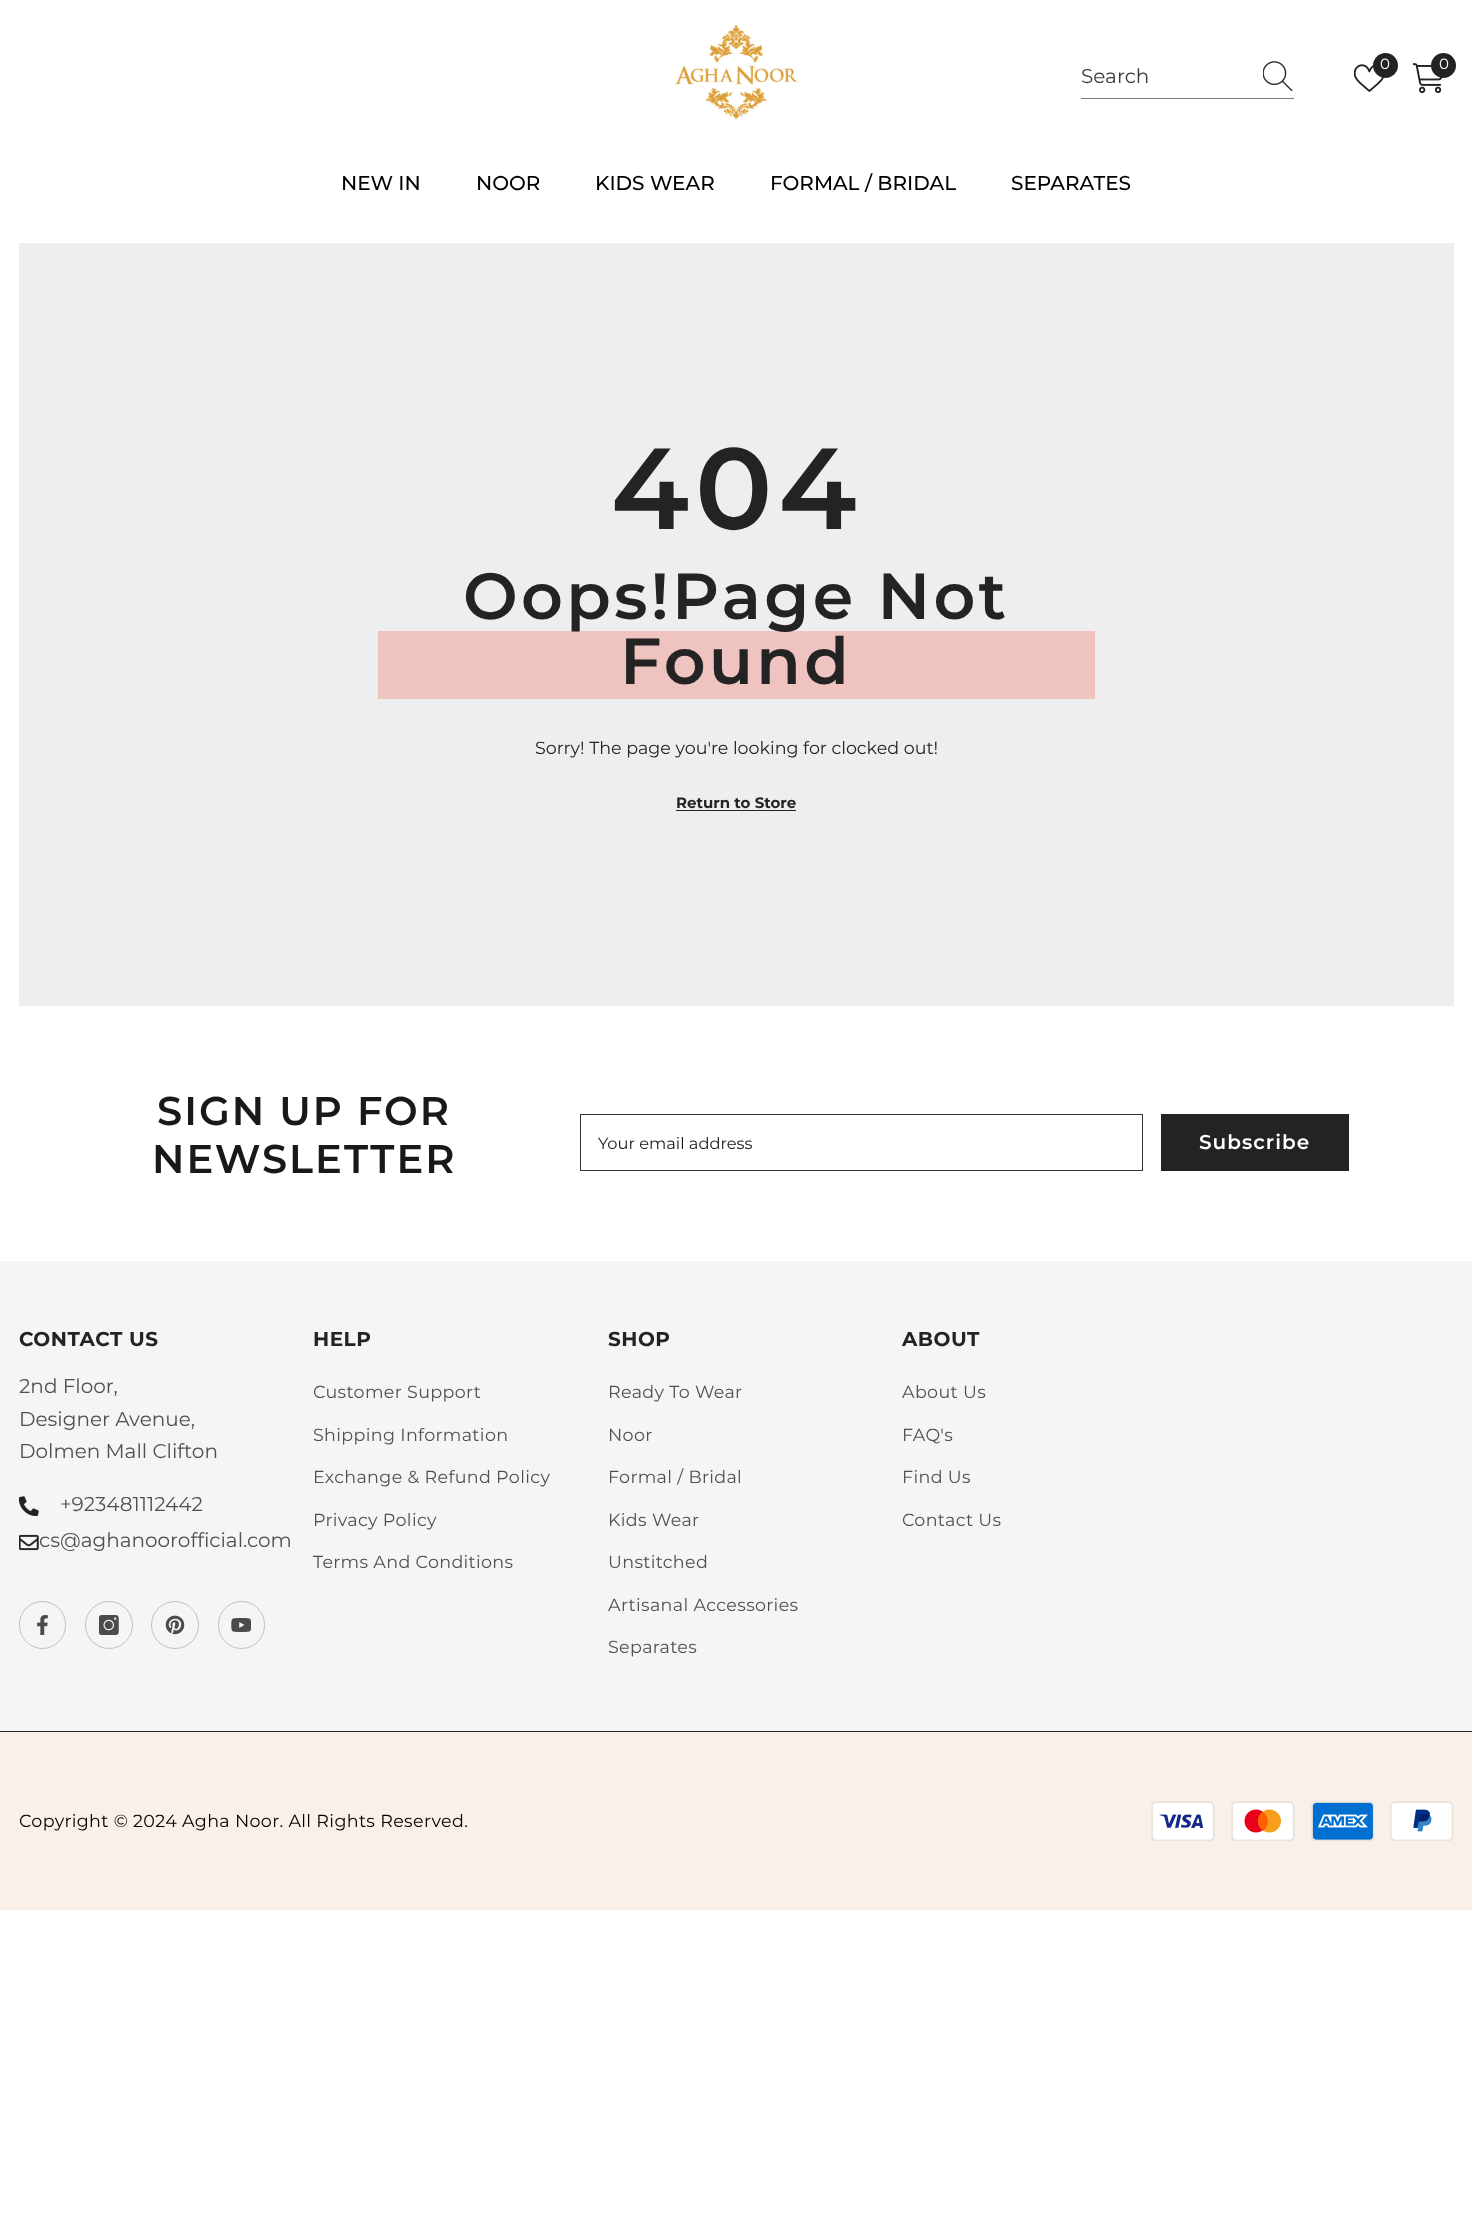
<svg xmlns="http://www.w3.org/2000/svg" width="1472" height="2234">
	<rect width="100%" height="100%" fill="#FFFFFF" />
	<image x="674" y="25" width="124" height="95" href="assets/img1.png" />
	<image x="1354" y="64" width="31" height="28" href="assets/img2.png" />
	<circle cx="1385.5" cy="65.5" r="12.5" fill="#232323" />
	<text x="1380" y="69" font-family="Montserrat" font-size="15" fill="#FFFFFF">0</text>
	<image x="1413" y="63" width="30" height="30" href="assets/img3.png" />
	<circle cx="1443.5" cy="65.5" r="12.5" fill="#232323" />
	<text x="1439" y="69" font-family="Montserrat" font-size="15" fill="#FFFFFF">0</text>
	<rect x="1081" y="98" width="213" height="1" fill="#7B7B7B" />
	<text x="1081" y="83" font-family="Montserrat" font-size="20" fill="#3C3C3C">Search</text>
	<image x="1263" y="61" width="30" height="30" href="assets/img4.png" />
	<g font-family="Montserrat" font-size="20" font-weight="500" fill="#000000">
		<text x="341" y="190">NEW IN</text>
		<text x="476" y="190">NOOR</text>
		<text x="595" y="190">KIDS WEAR</text>
		<text x="770" y="190">FORMAL / BRIDAL</text>
		<text x="1011" y="190">SEPARATES</text>
	</g>
	<rect x="19" y="243" width="1435" height="763" fill="#EEEEEE" />
	<text x="611" y="529" font-family="Montserrat" font-size="115" font-weight="600" letter-spacing="6" fill="#232323">404</text>
	<rect x="378" y="631" width="717" height="68" fill="#EFC3C0" />
	<g font-family="Montserrat" font-size="65" font-weight="600" letter-spacing="3.25" fill="#232323">
		<text x="463" y="619">Oops!Page Not</text>
		<text x="620" y="684">Found</text>
	</g>
	<text x="535" y="754" font-family="Montserrat" font-size="17.5" fill="#232323">Sorry! The page you're looking for clocked out!</text>
	<text x="676" y="808" font-family="Montserrat" font-size="15" font-weight="700" fill="#232323">Return to Store</text>
	<rect x="676" y="810" width="120" height="1" fill="#232323" />
	<g font-family="Montserrat" font-size="40" font-weight="600" letter-spacing="2" fill="#191919">
		<text x="157" y="1125">SIGN UP FOR</text>
		<text x="152" y="1173">NEWSLETTER</text>
	</g>
	<rect x="580.5" y="1114.5" width="562" height="56" fill="none" stroke="#333333" />
	<text x="598" y="1149" font-family="Montserrat" font-size="16.25" fill="#191919">Your email address</text>
	<rect x="1161" y="1114" width="188" height="57" fill="#232323" />
	<text x="1199" y="1149" font-family="Montserrat" font-size="20" font-weight="600" letter-spacing="1" fill="#FFFFFF">Subscribe</text>
	<rect x="0" y="1261" width="1472" height="470" fill="#F5F5F5" />
	<text x="19" y="1346" font-family="Montserrat" font-size="20" font-weight="700" letter-spacing="0.5" fill="#232323">CONTACT US</text>
	<g font-family="Montserrat" font-size="20" fill="#505050">
		<text x="19" y="1393">2nd Floor,</text>
		<text x="19" y="1426">Designer Avenue,</text>
		<text x="19" y="1458">Dolmen Mall Clifton</text>
	</g>
	<image x="19" y="1496" width="20" height="20" href="assets/img5.png" />
	<text x="60" y="1511" font-family="Montserrat" font-size="20" fill="#505050">+923481112442</text>
	<image x="19" y="1534" width="20" height="17" href="assets/img6.png" />
	<text x="39" y="1547" font-family="Montserrat" font-size="20" fill="#505050">cs@aghanoorofficial.com</text>
	<rect x="19.5" y="1601.5" width="46" height="47" rx="23" fill="none" stroke="#C2C2C2" />
	<image x="37" y="1615" width="11" height="20" href="assets/img7.png" />
	<circle cx="109" cy="1625" r="23.5" fill="none" stroke="#C2C2C2" />
	<image x="99" y="1615" width="20" height="20" href="assets/img8.png" />
	<circle cx="175" cy="1625" r="23.5" fill="none" stroke="#C2C2C2" />
	<image x="165" y="1615" width="20" height="20" href="assets/img9.png" />
	<rect x="218.5" y="1601.5" width="46" height="47" rx="23" fill="none" stroke="#C2C2C2" />
	<image x="231" y="1618" width="20" height="14" href="assets/img10.png" />
	<text x="313" y="1346" font-family="Montserrat" font-size="20" font-weight="700" letter-spacing="0.5" fill="#232323">HELP</text>
	<g font-family="Montserrat" font-size="17.5" letter-spacing="0.35" fill="#505050">
		<text x="313" y="1398">Customer Support</text>
		<text x="313" y="1441">Shipping Information</text>
		<text x="313" y="1483">Exchange &amp; Refund Policy</text>
		<text x="313" y="1526">Privacy Policy</text>
		<text x="313" y="1568">Terms And Conditions</text>
	</g>
	<text x="608" y="1346" font-family="Montserrat" font-size="20" font-weight="700" letter-spacing="0.5" fill="#232323">SHOP</text>
	<g font-family="Montserrat" font-size="17.5" letter-spacing="0.35" fill="#505050">
		<text x="608" y="1398">Ready To Wear</text>
		<text x="608" y="1441">Noor</text>
		<text x="608" y="1483">Formal / Bridal</text>
		<text x="608" y="1526">Kids Wear</text>
		<text x="608" y="1568">Unstitched</text>
		<text x="608" y="1611">Artisanal Accessories</text>
		<text x="608" y="1653">Separates</text>
	</g>
	<text x="902" y="1346" font-family="Montserrat" font-size="20" font-weight="700" letter-spacing="0.5" fill="#232323">ABOUT</text>
	<g font-family="Montserrat" font-size="17.5" letter-spacing="0.35" fill="#505050">
		<text x="902" y="1398">About Us</text>
		<text x="902" y="1441">FAQ's</text>
		<text x="902" y="1483">Find Us</text>
		<text x="902" y="1526">Contact Us</text>
	</g>
	<rect x="0" y="1732" width="1472" height="178" fill="#F9F1E9" />
	<rect x="0" y="1731" width="1472" height="1" fill="#282828" />
	<text x="19" y="1827" font-family="Montserrat" font-size="17.5" letter-spacing="0.35" fill="#000000">Copyright © 2024 Agha Noor. All Rights Reserved.</text>
	<image x="1151" y="1801" width="64" height="40" href="assets/img11.png" />
	<image x="1231" y="1801" width="64" height="40" href="assets/img12.png" />
	<image x="1311" y="1801" width="63" height="40" href="assets/img13.png" />
	<image x="1390" y="1801" width="64" height="40" href="assets/img14.png" />
</svg>
